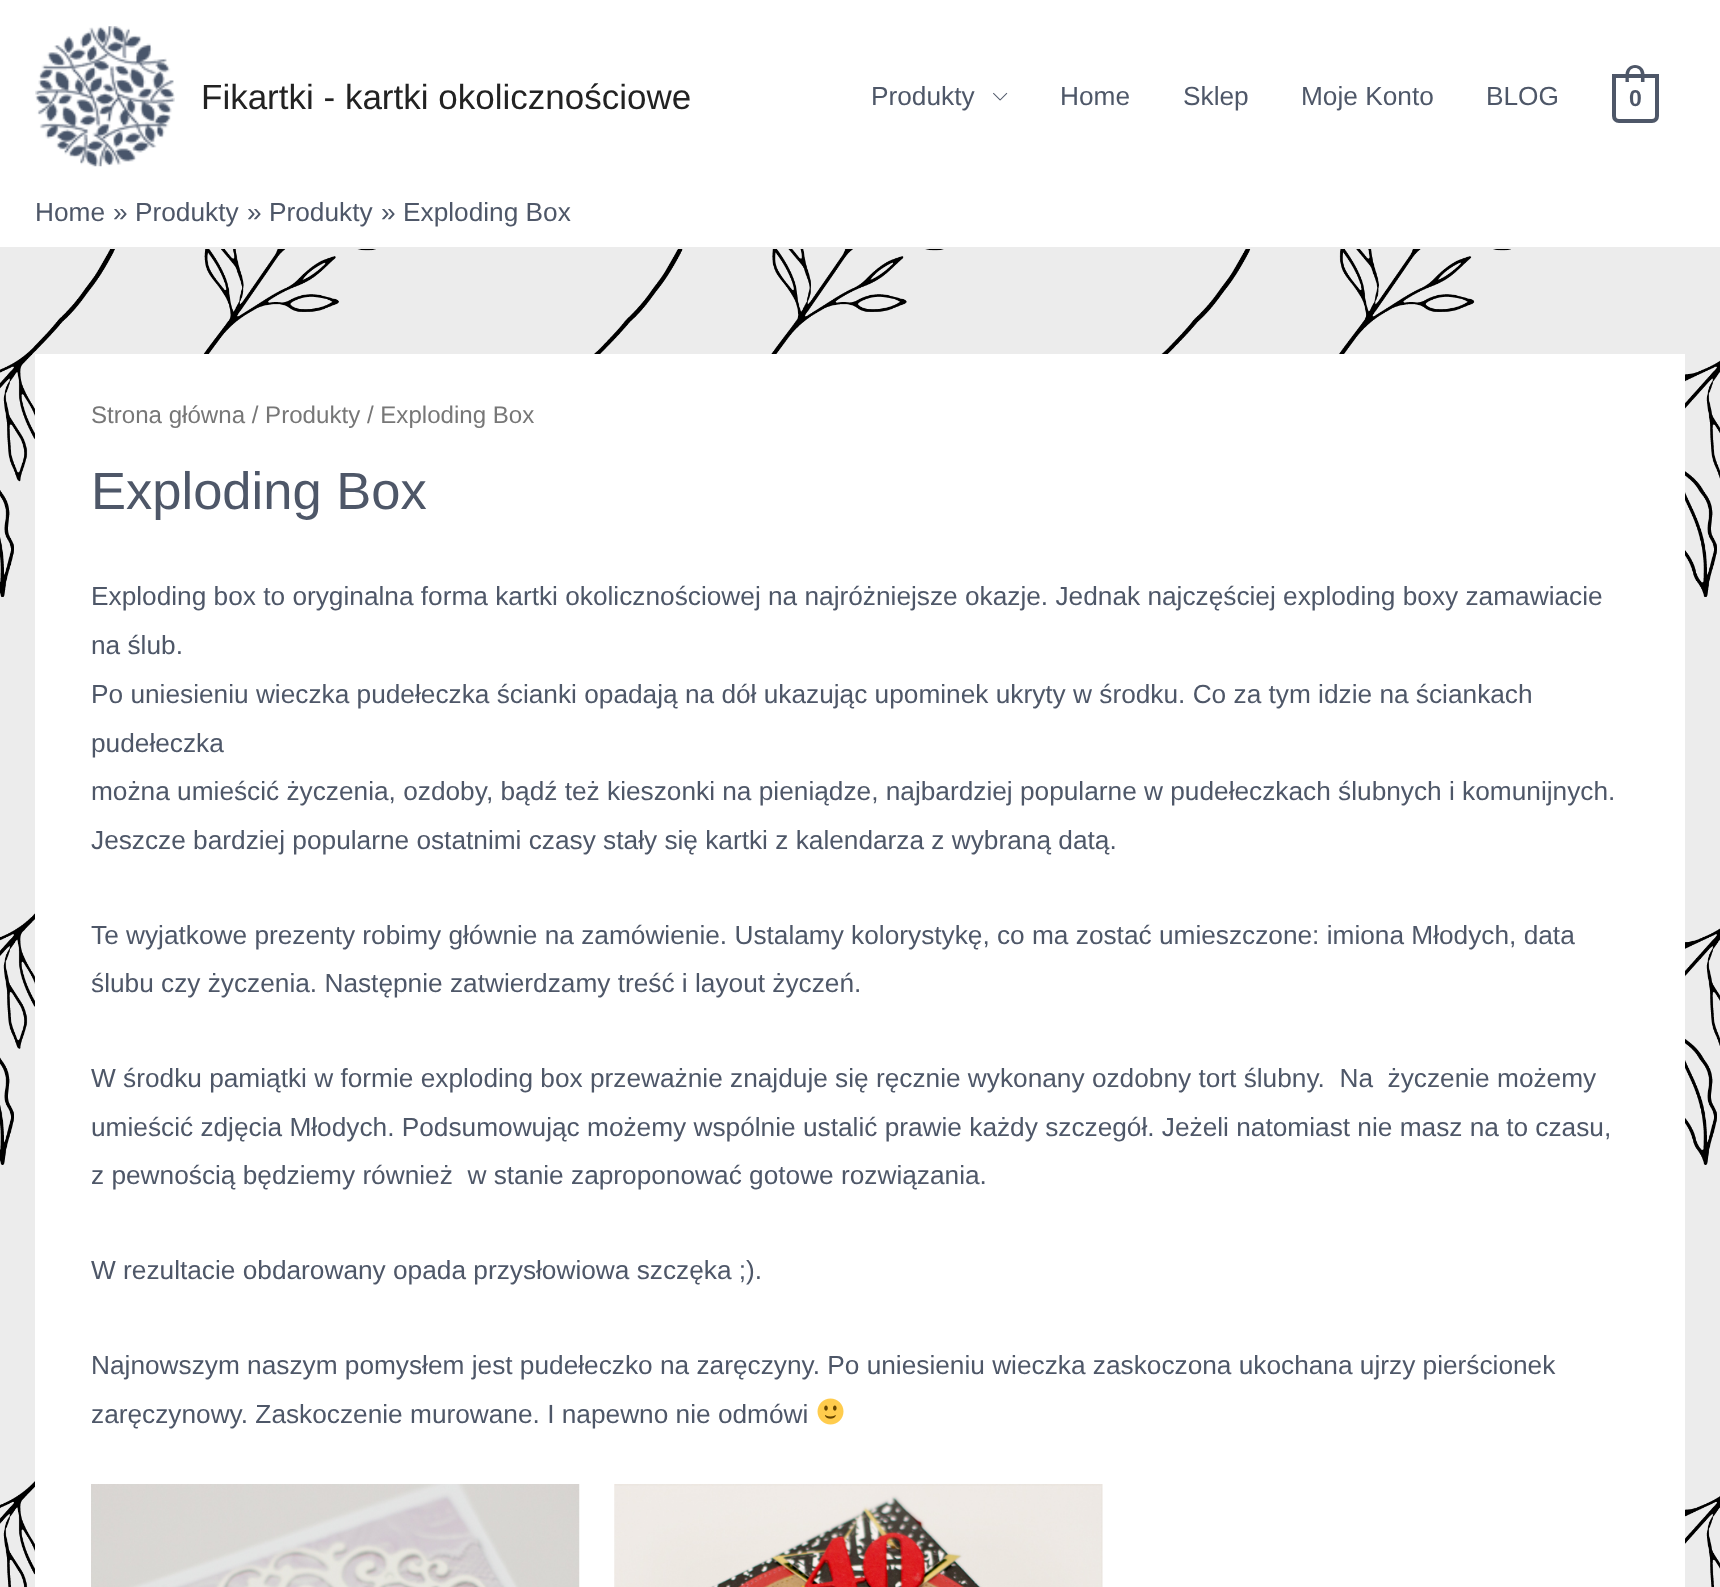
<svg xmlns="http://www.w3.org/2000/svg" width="1720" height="1587">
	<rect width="100%" height="100%" fill="#ECECEC" />
	<image x="0" y="249" width="1720" height="1338" href="assets/img1.png" />
	<rect x="0" y="0" width="1720" height="247" fill="#FFFFFF" />
	<image x="35" y="26" width="140" height="141" href="assets/img2.png" />
	<text x="201" y="109" font-family="Liberation Sans" font-size="35" fill="#222222">Fikartki - kartki okolicznościowe</text>
	<text x="871" y="105" font-family="Liberation Sans" font-size="26.25" fill="#4E5768">Produkty</text>
	<image x="993" y="92" width="15" height="9" href="assets/img3.png" />
	<g font-family="Liberation Sans" font-size="26.25" fill="#4E5768">
		<text x="1060" y="105">Home</text>
		<text x="1183" y="105">Sklep</text>
		<text x="1301" y="105">Moje Konto</text>
		<text x="1486" y="105">BLOG</text>
	</g>
	<path d="M1614 76H1657V116C1657 119 1655 121 1652 121H1619C1616 121 1614 119 1614 116Z" fill="none" stroke="#4E5768" stroke-width="4" />
	<path d="M1635 65C1640.5 65 1644.5 69 1644.5 74.5V82H1625.5V74.5C1625.5 69 1630 65 1635 65ZM1635 68C1642.5 68 1641 77.5 1641 82H1629C1629 77.5 1627.5 68 1635 68Z" fill="#4E5768" fill-rule="evenodd" />
	<text x="1629" y="106" font-family="Liberation Sans" font-size="23" font-weight="700" fill="#4E5768">0</text>
	<g font-family="Liberation Sans" font-size="26.25" fill="#4E5768">
		<text x="35" y="221">Home</text>
		<text x="113" y="221">»</text>
		<text x="135" y="221">Produkty</text>
		<text x="247" y="221">»</text>
		<text x="269" y="221">Produkty</text>
		<text x="381" y="221">»</text>
		<text x="403" y="221">Exploding Box</text>
	</g>
	<rect x="35" y="354" width="1650" height="1233" fill="#FFFFFF" />
	<text x="91" y="423" font-family="Liberation Sans" font-size="24.1" fill="#777777">Strona główna / Produkty / Exploding Box</text>
	<text x="91" y="509" font-family="Liberation Sans" font-size="52.5" fill="#4E5768">Exploding Box</text>
	<g font-family="Liberation Sans" font-size="26.25" fill="#4E5768">
		<text x="91" y="605">Exploding box to oryginalna forma kartki okolicznościowej na najróżniejsze okazje. Jednak najczęściej exploding boxy zamawiacie</text>
		<text x="91" y="654">na ślub.</text>
		<text x="91" y="703">Po uniesieniu wieczka pudełeczka ścianki opadają na dół ukazując upominek ukryty w środku. Co za tym idzie na ściankach</text>
		<text x="91" y="752">pudełeczka</text>
		<text x="91" y="800">można umieścić życzenia, ozdoby, bądź też kieszonki na pieniądze, najbardziej popularne w pudełeczkach ślubnych i komunijnych.</text>
		<text x="91" y="849">Jeszcze bardziej popularne ostatnimi czasy stały się kartki z kalendarza z wybraną datą.</text>
		<text x="91" y="944">Te wyjatkowe prezenty robimy głównie na zamówienie. Ustalamy kolorystykę, co ma zostać umieszczone: imiona Młodych, data</text>
		<text x="91" y="992">ślubu czy życzenia. Następnie zatwierdzamy treść i layout życzeń.</text>
		<text x="91" y="1087" xml:space="preserve">W środku pamiątki w formie exploding box przeważnie znajduje się ręcznie wykonany ozdobny tort ślubny.  Na  życzenie możemy</text>
		<text x="91" y="1136">umieścić zdjęcia Młodych. Podsumowując możemy wspólnie ustalić prawie każdy szczegół. Jeżeli natomiast nie masz na to czasu,</text>
		<text x="91" y="1184" xml:space="preserve">z pewnością będziemy również  w stanie zaproponować gotowe rozwiązania.</text>
		<text x="91" y="1279">W rezultacie obdarowany opada przysłowiowa szczęka ;).</text>
		<text x="91" y="1374">Najnowszym naszym pomysłem jest pudełeczko na zaręczyny. Po uniesieniu wieczka zaskoczona ukochana ujrzy pierścionek</text>
		<text x="91" y="1423">zaręczynowy. Zaskoczenie murowane. I napewno nie odmówi</text>
	</g>
	<image x="817" y="1398" width="27" height="27" href="assets/img4.png" />
	<image x="91" y="1484" width="489" height="103" href="assets/img5.png" />
	<image x="614" y="1484" width="489" height="103" href="assets/img6.png" />
</svg>
